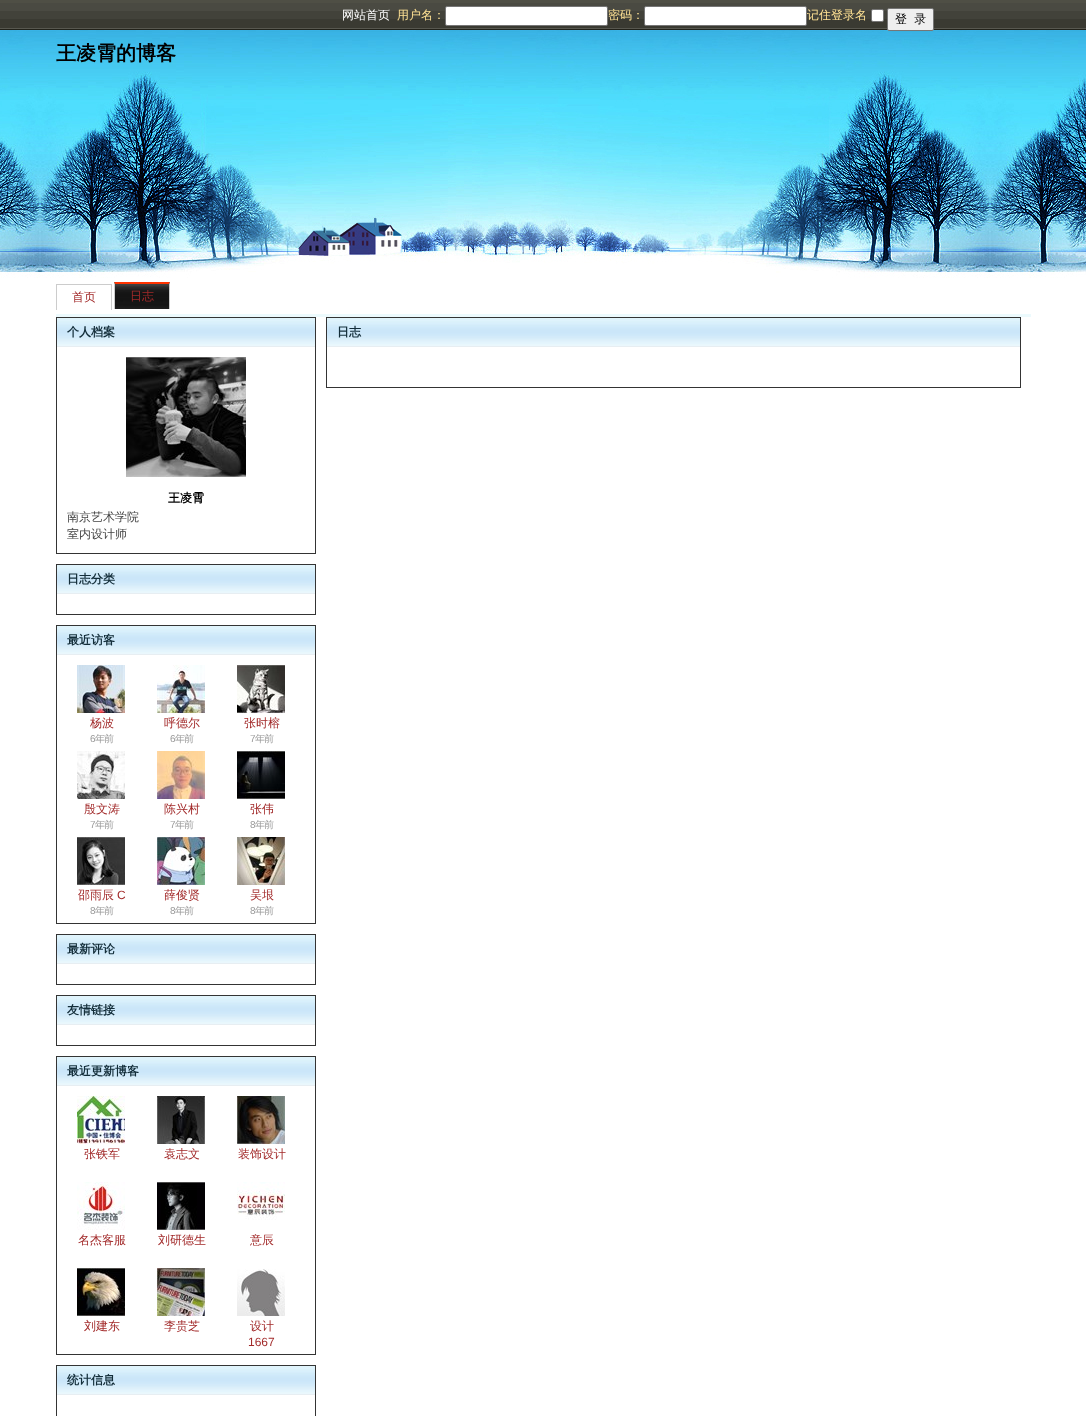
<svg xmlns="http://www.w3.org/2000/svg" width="1086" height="1416">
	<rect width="100%" height="100%" fill="#FFFFFF" />
	<image x="0" y="30" width="1086" height="248" href="assets/img1.png" />
	<image x="0" y="0" width="1086" height="30" href="assets/img2.png" />
	<text x="342" y="19" font-family="WenQuanYi Zen Hei" font-size="12" font-weight="500" fill="#FFFFFF">网站首页</text>
	<text x="397" y="19" font-family="WenQuanYi Zen Hei" font-size="12" font-weight="500" fill="#FFE294">用户名：</text>
	<rect x="445.5" y="6.5" width="162" height="19" rx="1.5" fill="#FFFFFF" stroke="#767676" />
	<text x="608" y="19" font-family="WenQuanYi Zen Hei" font-size="12" font-weight="500" fill="#FFE294">密码：</text>
	<rect x="644.5" y="6.5" width="162" height="19" rx="1.5" fill="#FFFFFF" stroke="#767676" />
	<text x="807" y="19" font-family="WenQuanYi Zen Hei" font-size="12" font-weight="500" fill="#FFE294">记住登录名</text>
	<rect x="871.5" y="9.5" width="12" height="12" rx="1.5" fill="#FFFFFF" stroke="#767676" />
	<rect x="887.5" y="8.5" width="46" height="22" rx="1.5" fill="#EFEFEF" stroke="#767676" />
	<text x="895" y="23" font-family="WenQuanYi Zen Hei" font-size="12" font-weight="500" fill="#000000" xml:space="preserve">登  录</text>
	<text x="56" y="60" font-family="WenQuanYi Zen Hei" font-size="20" font-weight="700" fill="#000000">王凌霄的博客</text>
	<rect x="56" y="314" width="975" height="3" fill="#ECFAFD" />
	<rect x="56" y="284" width="56" height="1" fill="#CCCCCC" />
	<rect x="111" y="284" width="1" height="26" fill="#CCCCCC" />
	<rect x="56" y="284" width="1" height="26" fill="#CCCCCC" />
	<text x="72" y="301" font-family="WenQuanYi Zen Hei" font-size="12" font-weight="500" fill="#A22A2A">首页</text>
	<image x="114" y="282" width="56" height="27" href="assets/img3.png" />
	<path d="M114 282H170L169 284H115Z" fill="#FF3300" />
	<path d="M170 282V309H169V284ZM114 309V282L115 284V309Z" fill="#CCCCCC" />
	<text x="130" y="300" font-family="WenQuanYi Zen Hei" font-size="12" font-weight="500" fill="#A22A2A">日志</text>
	<rect x="56.5" y="317.5" width="259" height="236" fill="none" stroke="#343434" />
	<image x="57" y="318" width="258" height="28" href="assets/img4.png" />
	<rect x="57" y="346" width="258" height="1" fill="#E7EEF2" />
	<text x="67" y="336" font-family="WenQuanYi Zen Hei" font-size="12" font-weight="700" fill="#132D39">个人档案</text>
	<image x="126" y="357" width="120" height="120" href="assets/img5.png" />
	<text x="168" y="502" font-family="WenQuanYi Zen Hei" font-size="12" font-weight="700" fill="#000000">王凌霄</text>
	<g font-family="WenQuanYi Zen Hei" font-size="12" font-weight="500" fill="#444444">
		<text x="67" y="521">南京艺术学院</text>
		<text x="67" y="538">室内设计师</text>
	</g>
	<rect x="56.5" y="564.5" width="259" height="50" fill="none" stroke="#343434" />
	<image x="57" y="565" width="258" height="28" href="assets/img4.png" />
	<rect x="57" y="593" width="258" height="1" fill="#E7EEF2" />
	<text x="67" y="583" font-family="WenQuanYi Zen Hei" font-size="12" font-weight="700" fill="#132D39">日志分类</text>
	<rect x="56.5" y="625.5" width="259" height="298" fill="none" stroke="#343434" />
	<image x="57" y="626" width="258" height="28" href="assets/img4.png" />
	<rect x="57" y="654" width="258" height="1" fill="#E7EEF2" />
	<text x="67" y="644" font-family="WenQuanYi Zen Hei" font-size="12" font-weight="700" fill="#132D39">最近访客</text>
	<image x="77" y="665" width="48" height="48" href="assets/img6.png" />
	<text x="90" y="727" font-family="WenQuanYi Zen Hei" font-size="12" font-weight="500" fill="#A22A2A">杨波</text>
	<text x="90" y="742" font-family="Liberation Sans" font-size="10" letter-spacing="-1" fill="#999999">6</text>
	<text x="95" y="742" font-family="WenQuanYi Zen Hei" font-size="10" font-weight="500" letter-spacing="-1" fill="#999999">年前</text>
	<image x="157" y="665" width="48" height="48" href="assets/img7.png" />
	<text x="164" y="727" font-family="WenQuanYi Zen Hei" font-size="12" font-weight="500" fill="#A22A2A">呼德尔</text>
	<text x="170" y="742" font-family="Liberation Sans" font-size="10" letter-spacing="-1" fill="#999999">6</text>
	<text x="175" y="742" font-family="WenQuanYi Zen Hei" font-size="10" font-weight="500" letter-spacing="-1" fill="#999999">年前</text>
	<image x="237" y="665" width="48" height="48" href="assets/img8.png" />
	<text x="244" y="727" font-family="WenQuanYi Zen Hei" font-size="12" font-weight="500" fill="#A22A2A">张时榕</text>
	<text x="250" y="742" font-family="Liberation Sans" font-size="10" letter-spacing="-1" fill="#999999">7</text>
	<text x="255" y="742" font-family="WenQuanYi Zen Hei" font-size="10" font-weight="500" letter-spacing="-1" fill="#999999">年前</text>
	<image x="77" y="751" width="48" height="48" href="assets/img9.png" />
	<text x="84" y="813" font-family="WenQuanYi Zen Hei" font-size="12" font-weight="500" fill="#A22A2A">殷文涛</text>
	<text x="90" y="828" font-family="Liberation Sans" font-size="10" letter-spacing="-1" fill="#999999">7</text>
	<text x="95" y="828" font-family="WenQuanYi Zen Hei" font-size="10" font-weight="500" letter-spacing="-1" fill="#999999">年前</text>
	<image x="157" y="751" width="48" height="48" href="assets/img10.png" />
	<text x="164" y="813" font-family="WenQuanYi Zen Hei" font-size="12" font-weight="500" fill="#A22A2A">陈兴村</text>
	<text x="170" y="828" font-family="Liberation Sans" font-size="10" letter-spacing="-1" fill="#999999">7</text>
	<text x="175" y="828" font-family="WenQuanYi Zen Hei" font-size="10" font-weight="500" letter-spacing="-1" fill="#999999">年前</text>
	<image x="237" y="751" width="48" height="48" href="assets/img11.png" />
	<text x="250" y="813" font-family="WenQuanYi Zen Hei" font-size="12" font-weight="500" fill="#A22A2A">张伟</text>
	<text x="250" y="828" font-family="Liberation Sans" font-size="10" letter-spacing="-1" fill="#999999">8</text>
	<text x="255" y="828" font-family="WenQuanYi Zen Hei" font-size="10" font-weight="500" letter-spacing="-1" fill="#999999">年前</text>
	<image x="77" y="837" width="48" height="48" href="assets/img12.png" />
	<text x="78" y="899" font-family="WenQuanYi Zen Hei" font-size="12" font-weight="500" fill="#A22A2A">邵雨辰</text>
	<text x="117" y="899" font-family="Liberation Sans" font-size="12" fill="#A22A2A">C</text>
	<text x="90" y="914" font-family="Liberation Sans" font-size="10" letter-spacing="-1" fill="#999999">8</text>
	<text x="95" y="914" font-family="WenQuanYi Zen Hei" font-size="10" font-weight="500" letter-spacing="-1" fill="#999999">年前</text>
	<image x="157" y="837" width="48" height="48" href="assets/img13.png" />
	<text x="164" y="899" font-family="WenQuanYi Zen Hei" font-size="12" font-weight="500" fill="#A22A2A">薛俊贤</text>
	<text x="170" y="914" font-family="Liberation Sans" font-size="10" letter-spacing="-1" fill="#999999">8</text>
	<text x="175" y="914" font-family="WenQuanYi Zen Hei" font-size="10" font-weight="500" letter-spacing="-1" fill="#999999">年前</text>
	<image x="237" y="837" width="48" height="48" href="assets/img14.png" />
	<text x="250" y="899" font-family="WenQuanYi Zen Hei" font-size="12" font-weight="500" fill="#A22A2A">吴垠</text>
	<text x="250" y="914" font-family="Liberation Sans" font-size="10" letter-spacing="-1" fill="#999999">8</text>
	<text x="255" y="914" font-family="WenQuanYi Zen Hei" font-size="10" font-weight="500" letter-spacing="-1" fill="#999999">年前</text>
	<rect x="56.5" y="934.5" width="259" height="50" fill="none" stroke="#343434" />
	<image x="57" y="935" width="258" height="28" href="assets/img4.png" />
	<rect x="57" y="963" width="258" height="1" fill="#E7EEF2" />
	<text x="67" y="953" font-family="WenQuanYi Zen Hei" font-size="12" font-weight="700" fill="#132D39">最新评论</text>
	<rect x="56.5" y="995.5" width="259" height="50" fill="none" stroke="#343434" />
	<image x="57" y="996" width="258" height="28" href="assets/img4.png" />
	<rect x="57" y="1024" width="258" height="1" fill="#E7EEF2" />
	<text x="67" y="1014" font-family="WenQuanYi Zen Hei" font-size="12" font-weight="700" fill="#132D39">友情链接</text>
	<rect x="56.5" y="1056.5" width="259" height="298" fill="none" stroke="#343434" />
	<image x="57" y="1057" width="258" height="28" href="assets/img4.png" />
	<rect x="57" y="1085" width="258" height="1" fill="#E7EEF2" />
	<text x="67" y="1075" font-family="WenQuanYi Zen Hei" font-size="12" font-weight="700" fill="#132D39">最近更新博客</text>
	<image x="77" y="1096" width="48" height="48" href="assets/img15.png" />
	<text x="84" y="1158" font-family="WenQuanYi Zen Hei" font-size="12" font-weight="500" fill="#A22A2A">张铁军</text>
	<image x="157" y="1096" width="48" height="48" href="assets/img16.png" />
	<text x="164" y="1158" font-family="WenQuanYi Zen Hei" font-size="12" font-weight="500" fill="#A22A2A">袁志文</text>
	<image x="237" y="1096" width="48" height="48" href="assets/img17.png" />
	<text x="238" y="1158" font-family="WenQuanYi Zen Hei" font-size="12" font-weight="500" fill="#A22A2A">装饰设计</text>
	<image x="77" y="1182" width="48" height="48" href="assets/img18.png" />
	<text x="78" y="1244" font-family="WenQuanYi Zen Hei" font-size="12" font-weight="500" fill="#A22A2A">名杰客服</text>
	<image x="157" y="1182" width="48" height="48" href="assets/img19.png" />
	<text x="158" y="1244" font-family="WenQuanYi Zen Hei" font-size="12" font-weight="500" fill="#A22A2A">刘研德生</text>
	<image x="237" y="1182" width="48" height="38" href="assets/img20.png" />
	<text x="250" y="1244" font-family="WenQuanYi Zen Hei" font-size="12" font-weight="500" fill="#A22A2A">意辰</text>
	<image x="77" y="1268" width="48" height="48" href="assets/img21.png" />
	<text x="84" y="1330" font-family="WenQuanYi Zen Hei" font-size="12" font-weight="500" fill="#A22A2A">刘建东</text>
	<image x="157" y="1268" width="48" height="48" href="assets/img22.png" />
	<text x="164" y="1330" font-family="WenQuanYi Zen Hei" font-size="12" font-weight="500" fill="#A22A2A">李贵芝</text>
	<image x="237" y="1269" width="48" height="47" href="assets/img23.png" />
	<text x="250" y="1330" font-family="WenQuanYi Zen Hei" font-size="12" font-weight="500" fill="#A22A2A">设计</text>
	<text x="248" y="1346" font-family="Liberation Sans" font-size="12" fill="#A22A2A">1667</text>
	<rect x="56.5" y="1365.5" width="259" height="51" fill="none" stroke="#343434" />
	<image x="57" y="1366" width="258" height="28" href="assets/img4.png" />
	<rect x="57" y="1394" width="258" height="1" fill="#E7EEF2" />
	<text x="67" y="1384" font-family="WenQuanYi Zen Hei" font-size="12" font-weight="700" fill="#132D39">统计信息</text>
	<rect x="326.5" y="317.5" width="694" height="70" fill="none" stroke="#343434" />
	<image x="327" y="318" width="693" height="28" href="assets/img24.png" />
	<rect x="327" y="346" width="693" height="1" fill="#E7EEF2" />
	<text x="337" y="336" font-family="WenQuanYi Zen Hei" font-size="12" font-weight="700" fill="#132D39">日志</text>
</svg>
